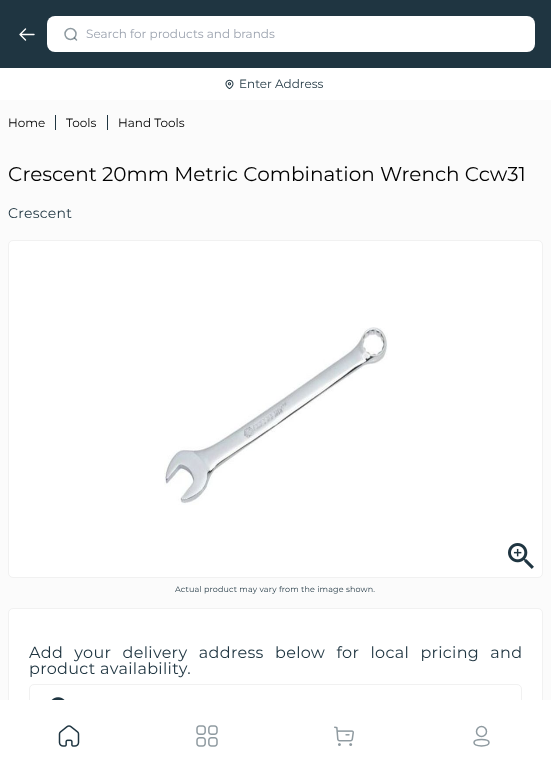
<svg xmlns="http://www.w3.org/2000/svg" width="551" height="772">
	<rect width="100%" height="100%" fill="#FBFBFB" />
	<rect x="0" y="0" width="551" height="68" fill="#1F3541" />
	<path d="M20 34.5H34M25.5 40L20 34.5L25.5 29" fill="none" stroke="#FFFFFF" stroke-width="1.4" stroke-linecap="round" stroke-linejoin="round" />
	<rect x="47" y="16" width="488" height="36" rx="8" fill="#FFFFFF" />
	<circle cx="70.5" cy="34" r="5.5" fill="none" stroke="#8F9AA0" stroke-width="1.5" />
	<path d="M74.5 38L76.5 40" fill="none" stroke="#1F3541" stroke-opacity="0.5" stroke-width="1.5" stroke-linecap="round" stroke-linejoin="round" />
	<text x="86" y="38" font-family="Montserrat" font-size="12" fill="#9CA3AF">Search for products and brands</text>
	<rect x="0" y="68" width="551" height="32" fill="#FFFFFF" />
	<image x="225" y="79" width="9" height="11" href="assets/img1.png" />
	<text x="239" y="88" font-family="Montserrat" font-size="12" fill="#1F3541">Enter Address</text>
	<rect x="55" y="115" width="1" height="15" fill="#1F3541" />
	<text x="8" y="127" font-family="Montserrat" font-size="12" fill="#000000">Home</text>
	<rect x="107" y="115" width="1" height="15" fill="#1F3541" />
	<g font-family="Montserrat" font-size="12" fill="#000000">
		<text x="66" y="127">Tools</text>
		<text x="118" y="127">Hand Tools</text>
	</g>
	<text x="8" y="181" font-family="Montserrat" font-size="20" fill="#000000">Crescent 20mm Metric Combination Wrench Ccw31</text>
	<text x="8" y="218" font-family="Montserrat" font-size="14" letter-spacing="0.25" fill="#1F3541">Crescent</text>
	<rect x="8.5" y="240.5" width="534" height="337" rx="4.5" fill="#FFFFFF" stroke="#F1F1F1" />
	<image x="164" y="327" width="224" height="178" href="assets/img2.png" />
	<image x="508" y="543" width="26" height="26" href="assets/img3.png" />
	<text x="175" y="592" font-family="Montserrat" font-size="8" letter-spacing="0.15" fill="#1F3541">Actual product may vary from the image shown.</text>
	<rect x="8.5" y="608.5" width="534" height="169" rx="4.5" fill="#FFFFFF" stroke="#F1F1F1" />
	<g font-family="Montserrat" font-size="16" letter-spacing="0.32" fill="#1F3541">
		<text x="29" y="658" word-spacing="6.75">Add your delivery address below for local pricing and</text>
		<text x="29" y="674">product availability.</text>
	</g>
	<rect x="29.5" y="684.5" width="492" height="49" rx="4.5" fill="none" stroke="#F1F1F1" />
	<image x="51" y="697" width="14" height="3" href="assets/img4.png" />
	<rect x="0" y="700" width="551" height="72" fill="#FFFFFF" />
	<image x="58" y="725" width="22" height="22" href="assets/img5.png" />
	<image x="196" y="725" width="22" height="22" href="assets/img6.png" />
	<image x="334" y="726" width="20" height="20" href="assets/img7.png" />
	<circle cx="481.5" cy="731.5" r="5" fill="none" stroke="#8F9AA0" stroke-width="1.5" />
	<path d="M474 742.5C474 738.5 489 738.5 489 742.5C489 747 474 747 474 742.5Z" fill="none" stroke="#8F9AA0" stroke-width="1.5" stroke-linecap="round" stroke-linejoin="round" />
</svg>
